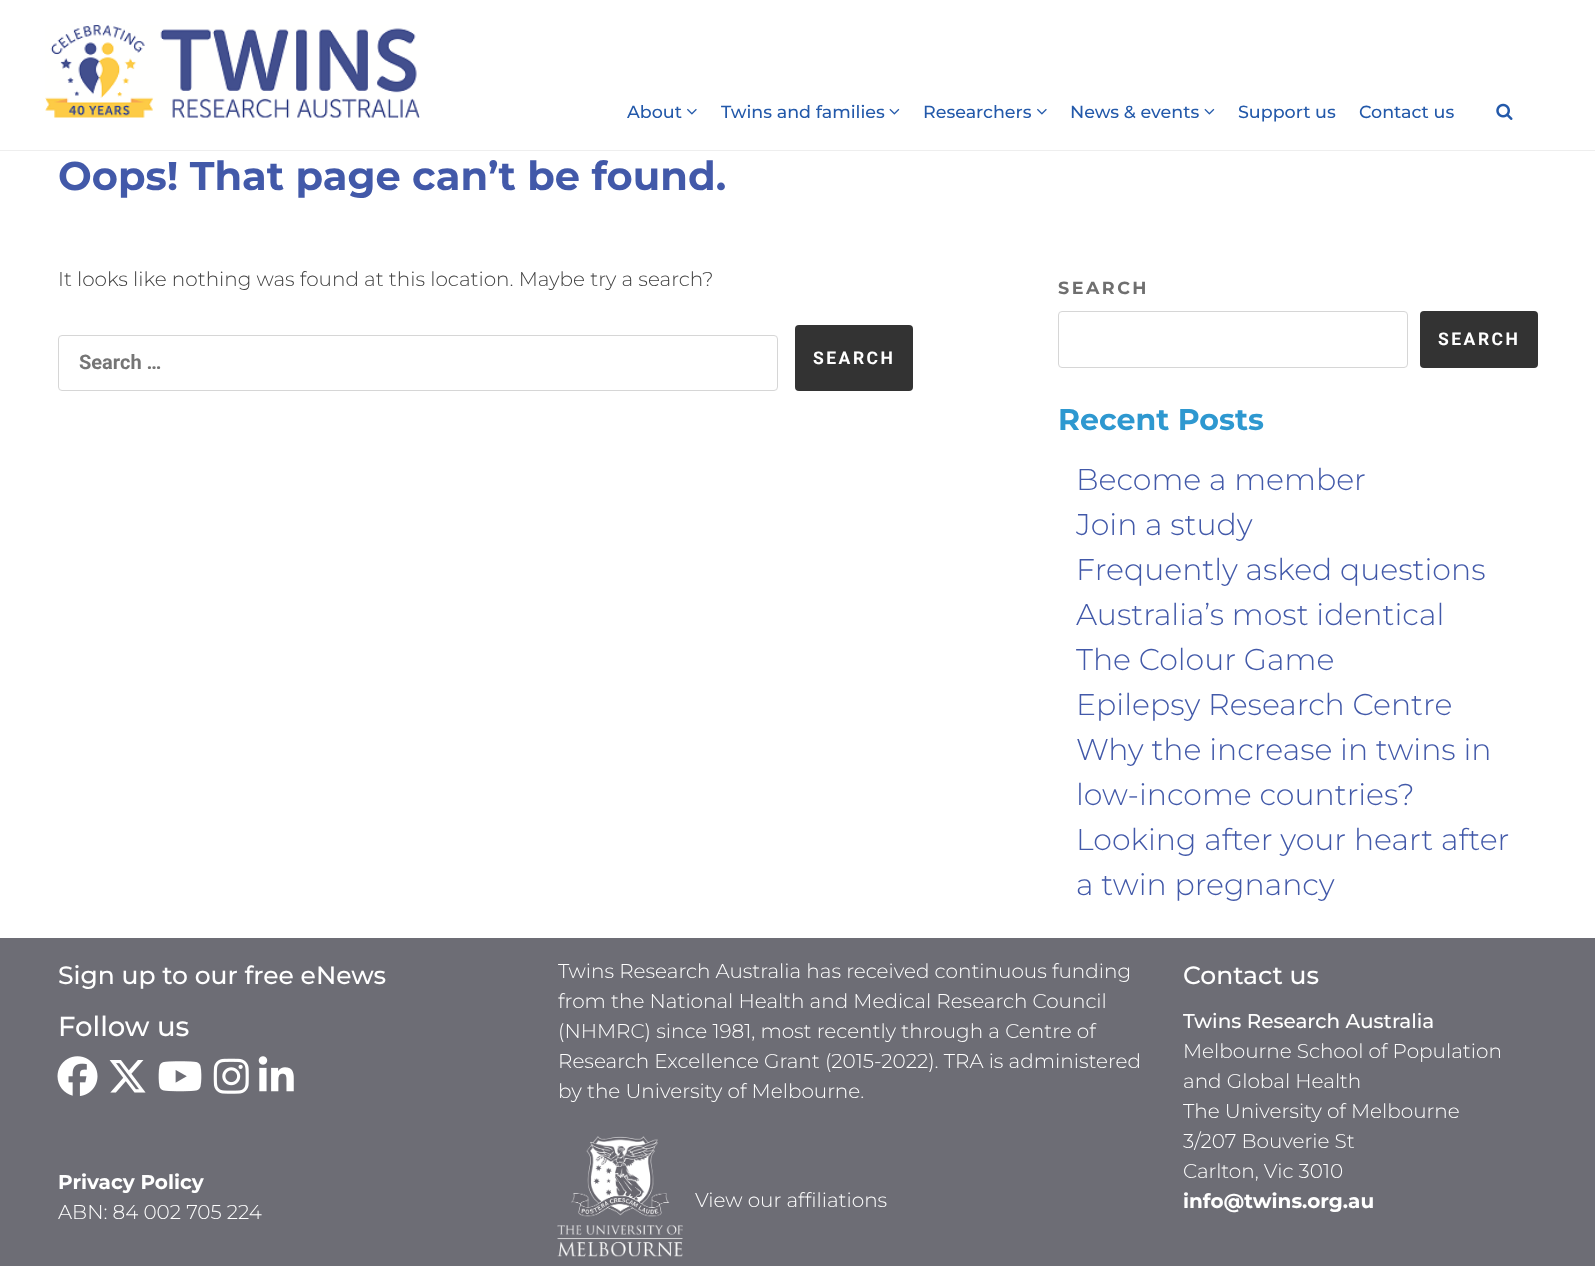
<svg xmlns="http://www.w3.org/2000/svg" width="1595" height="1266">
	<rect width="100%" height="100%" fill="#FFFFFF" />
	<rect x="0" y="150" width="1595" height="1" fill="#EEEEEE" />
	<image x="45" y="25" width="375" height="93" href="assets/img1.png" />
	<text x="627" y="118" font-family="Montserrat" font-size="17.5" font-weight="500" fill="#2359AA">About</text>
	<image x="687" y="108" width="10" height="7" href="assets/img2.png" />
	<text x="721" y="118" font-family="Montserrat" font-size="17.5" font-weight="500" fill="#2359AA">Twins and families</text>
	<image x="889" y="108" width="11" height="7" href="assets/img3.png" />
	<text x="923" y="118" font-family="Montserrat" font-size="17.5" font-weight="500" fill="#2359AA">Researchers</text>
	<image x="1037" y="108" width="10" height="7" href="assets/img2.png" />
	<text x="1070" y="118" font-family="Montserrat" font-size="17.5" font-weight="500" fill="#2359AA">News &amp; events</text>
	<image x="1204" y="108" width="11" height="7" href="assets/img3.png" />
	<g font-family="Montserrat" font-size="17.5" font-weight="500" fill="#2359AA">
		<text x="1238" y="118">Support us</text>
		<text x="1359" y="118">Contact us</text>
	</g>
	<image x="1496" y="103" width="17" height="17" href="assets/img4.png" />
	<text x="58" y="190" font-family="Montserrat" font-size="40" font-weight="700" fill="#4259A9">Oops! That page can’t be found.</text>
	<text x="58" y="286" font-family="Montserrat" font-size="20" font-weight="300" fill="#404040">It looks like nothing was found at this location. Maybe try a search?</text>
	<rect x="58.5" y="335.5" width="719" height="55" rx="3.5" fill="none" stroke="#D6D6D6" />
	<text x="79" y="369" font-family="Roboto" font-size="20" font-weight="700" fill="#757575">Search …</text>
	<rect x="795" y="325" width="118" height="66" rx="4" fill="#333333" />
	<text x="813" y="364" font-family="Roboto" font-size="17.5" font-weight="700" letter-spacing="2.5" fill="#FFFFFF">SEARCH</text>
	<text x="1058" y="294" font-family="Montserrat" font-size="17.5" font-weight="700" letter-spacing="2.5" fill="#6F6F6F">SEARCH</text>
	<rect x="1058.5" y="311.5" width="349" height="56" rx="3.5" fill="none" stroke="#D6D6D6" />
	<rect x="1420" y="311" width="118" height="57" rx="4" fill="#333333" />
	<text x="1438" y="345" font-family="Roboto" font-size="17.5" font-weight="700" letter-spacing="2.5" fill="#FFFFFF">SEARCH</text>
	<text x="1058" y="430" font-family="Montserrat" font-size="30" font-weight="700" fill="#2E98D0">Recent Posts</text>
	<g font-family="Montserrat" font-size="30" font-weight="300" fill="#4259A9">
		<text x="1076" y="490">Become a member</text>
		<text x="1076" y="535">Join a study</text>
		<text x="1076" y="580">Frequently asked questions</text>
		<text x="1076" y="625">Australia’s most identical</text>
		<text x="1076" y="670">The Colour Game</text>
		<text x="1076" y="715">Epilepsy Research Centre</text>
		<text x="1076" y="760">Why the increase in twins in</text>
		<text x="1076" y="805">low-income countries?</text>
		<text x="1076" y="850">Looking after your heart after</text>
		<text x="1076" y="895">a twin pregnancy</text>
	</g>
	<rect x="0" y="938" width="1595" height="328" fill="#6D6D75" />
	<text x="58" y="984" font-family="Montserrat" font-size="25" font-weight="500" fill="#FFFFFF">Sign up to our free eNews</text>
	<text x="58" y="1036" font-family="Montserrat" font-size="27.5" font-weight="500" fill="#FFFFFF">Follow us</text>
	<image x="57" y="1056" width="41" height="40" href="assets/img5.png" />
	<image x="109" y="1060" width="37" height="33" href="assets/img6.png" />
	<image x="158" y="1061" width="44" height="31" href="assets/img7.png" />
	<image x="213" y="1058" width="36" height="36" href="assets/img8.png" />
	<image x="258" y="1056" width="36" height="36" href="assets/img9.png" />
	<text x="58" y="1189" font-family="Montserrat" font-size="20" font-weight="700" fill="#FFFFFF">Privacy Policy</text>
	<g font-family="Montserrat" font-size="20" font-weight="300" fill="#FFFFFF">
		<text x="58" y="1219">ABN: 84 002 705 224</text>
		<text x="558" y="978">Twins Research Australia has received continuous funding</text>
		<text x="558" y="1008">from the National Health and Medical Research Council</text>
		<text x="558" y="1038">(NHMRC) since 1981, most recently through a Centre of</text>
		<text x="558" y="1068">Research Excellence Grant (2015-2022). TRA is administered</text>
		<text x="558" y="1098">by the University of Melbourne.</text>
	</g>
	<image x="557" y="1136" width="126" height="121" href="assets/img10.png" />
	<text x="695" y="1207" font-family="Montserrat" font-size="20" font-weight="300" fill="#FFFFFF">View our affiliations</text>
	<text x="1183" y="984" font-family="Montserrat" font-size="25" font-weight="500" fill="#FFFFFF">Contact us</text>
	<text x="1183" y="1028" font-family="Montserrat" font-size="20" font-weight="500" fill="#FFFFFF">Twins Research Australia</text>
	<g font-family="Montserrat" font-size="20" font-weight="300" fill="#FFFFFF">
		<text x="1183" y="1058">Melbourne School of Population</text>
		<text x="1183" y="1088">and Global Health</text>
		<text x="1183" y="1118">The University of Melbourne</text>
		<text x="1183" y="1148">3/207 Bouverie St</text>
		<text x="1183" y="1178">Carlton, Vic 3010</text>
	</g>
	<text x="1183" y="1208" font-family="Montserrat" font-size="20" font-weight="700" fill="#FFFFFF">info@twins.org.au</text>
</svg>
